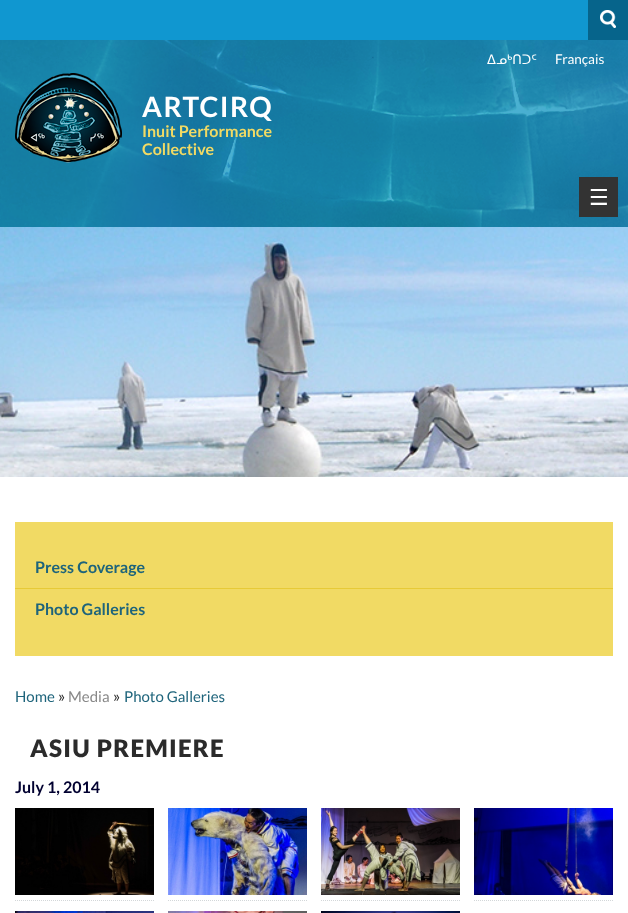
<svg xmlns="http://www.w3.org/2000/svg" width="628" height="913">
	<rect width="100%" height="100%" fill="#FFFFFF" />
	<image x="0" y="40" width="628" height="187" href="assets/img1.png" />
	<rect x="0" y="0" width="588" height="40" fill="#1097D0" />
	<rect x="588" y="0" width="40" height="40" fill="#06648B" />
	<image x="600" y="10" width="16" height="18" href="assets/img2.png" />
	<text x="487" y="64" font-family="DejaVu Sans" font-size="13" fill="#FFFFFF">ᐃᓄᒃᑎᑐᑦ</text>
	<text x="555" y="64" font-family="Lato" font-size="13.5" fill="#FFFFFF">Français</text>
	<image x="15" y="73" width="107" height="90" href="assets/img3.png" />
	<text x="142" y="117" font-family="Lato" font-size="28" font-weight="700" letter-spacing="1.5" fill="#FFFFFF">ARTCIRQ</text>
	<g font-family="Lato" font-size="16" font-weight="700" fill="#F1DA64">
		<text x="142" y="137">Inuit Performance</text>
		<text x="142" y="155">Collective</text>
	</g>
	<rect x="579" y="177" width="39" height="40" fill="#333333" />
	<text x="589" y="205" font-family="DejaVu Sans" font-size="22" fill="#FFFFFF">☰</text>
	<image x="0" y="227" width="628" height="250" href="assets/img4.png" />
	<rect x="15" y="522" width="598" height="134" fill="#F1DA64" />
	<rect x="15" y="588" width="598" height="1" fill="#E7CA37" />
	<g font-family="Lato" font-size="16" font-weight="700" fill="#1E647B">
		<text x="35" y="573">Press Coverage</text>
		<text x="35" y="615">Photo Galleries</text>
	</g>
	<text x="15" y="702" font-family="Lato" font-size="15" fill="#1E647B">Home</text>
	<text x="58" y="702" font-family="Lato" font-size="16" fill="#2B2B2B">»</text>
	<text x="68" y="702" font-family="Lato" font-size="15" fill="#888888">Media</text>
	<text x="113" y="702" font-family="Lato" font-size="16" fill="#2B2B2B">»</text>
	<text x="124" y="702" font-family="Lato" font-size="15" fill="#1E647B">Photo Galleries</text>
	<text x="30" y="757" font-family="Lato" font-size="24" font-weight="900" letter-spacing="1.25" fill="#2B2B2B">ASIU PREMIERE</text>
	<text x="15" y="793" font-family="Lato" font-size="16" font-weight="700" fill="#010030">July 1, 2014</text>
	<path d="M15 900.5H154" fill="none" stroke="#D3D7D9" stroke-dasharray="1 1" />
	<image x="15" y="808" width="139" height="87" href="assets/img5.png" />
	<path d="M168 900.5H307" fill="none" stroke="#D3D7D9" stroke-dasharray="1 1" />
	<image x="168" y="808" width="139" height="87" href="assets/img6.png" />
	<path d="M321 900.5H460" fill="none" stroke="#D3D7D9" stroke-dasharray="1 1" />
	<image x="321" y="808" width="139" height="87" href="assets/img7.png" />
	<path d="M474 900.5H613" fill="none" stroke="#D3D7D9" stroke-dasharray="1 1" />
	<image x="474" y="808" width="139" height="87" href="assets/img8.png" />
	<image x="15" y="911" width="139" height="2" href="assets/img9.png" />
	<image x="168" y="911" width="139" height="2" href="assets/img10.png" />
	<image x="321" y="911" width="139" height="2" href="assets/img11.png" />
</svg>
